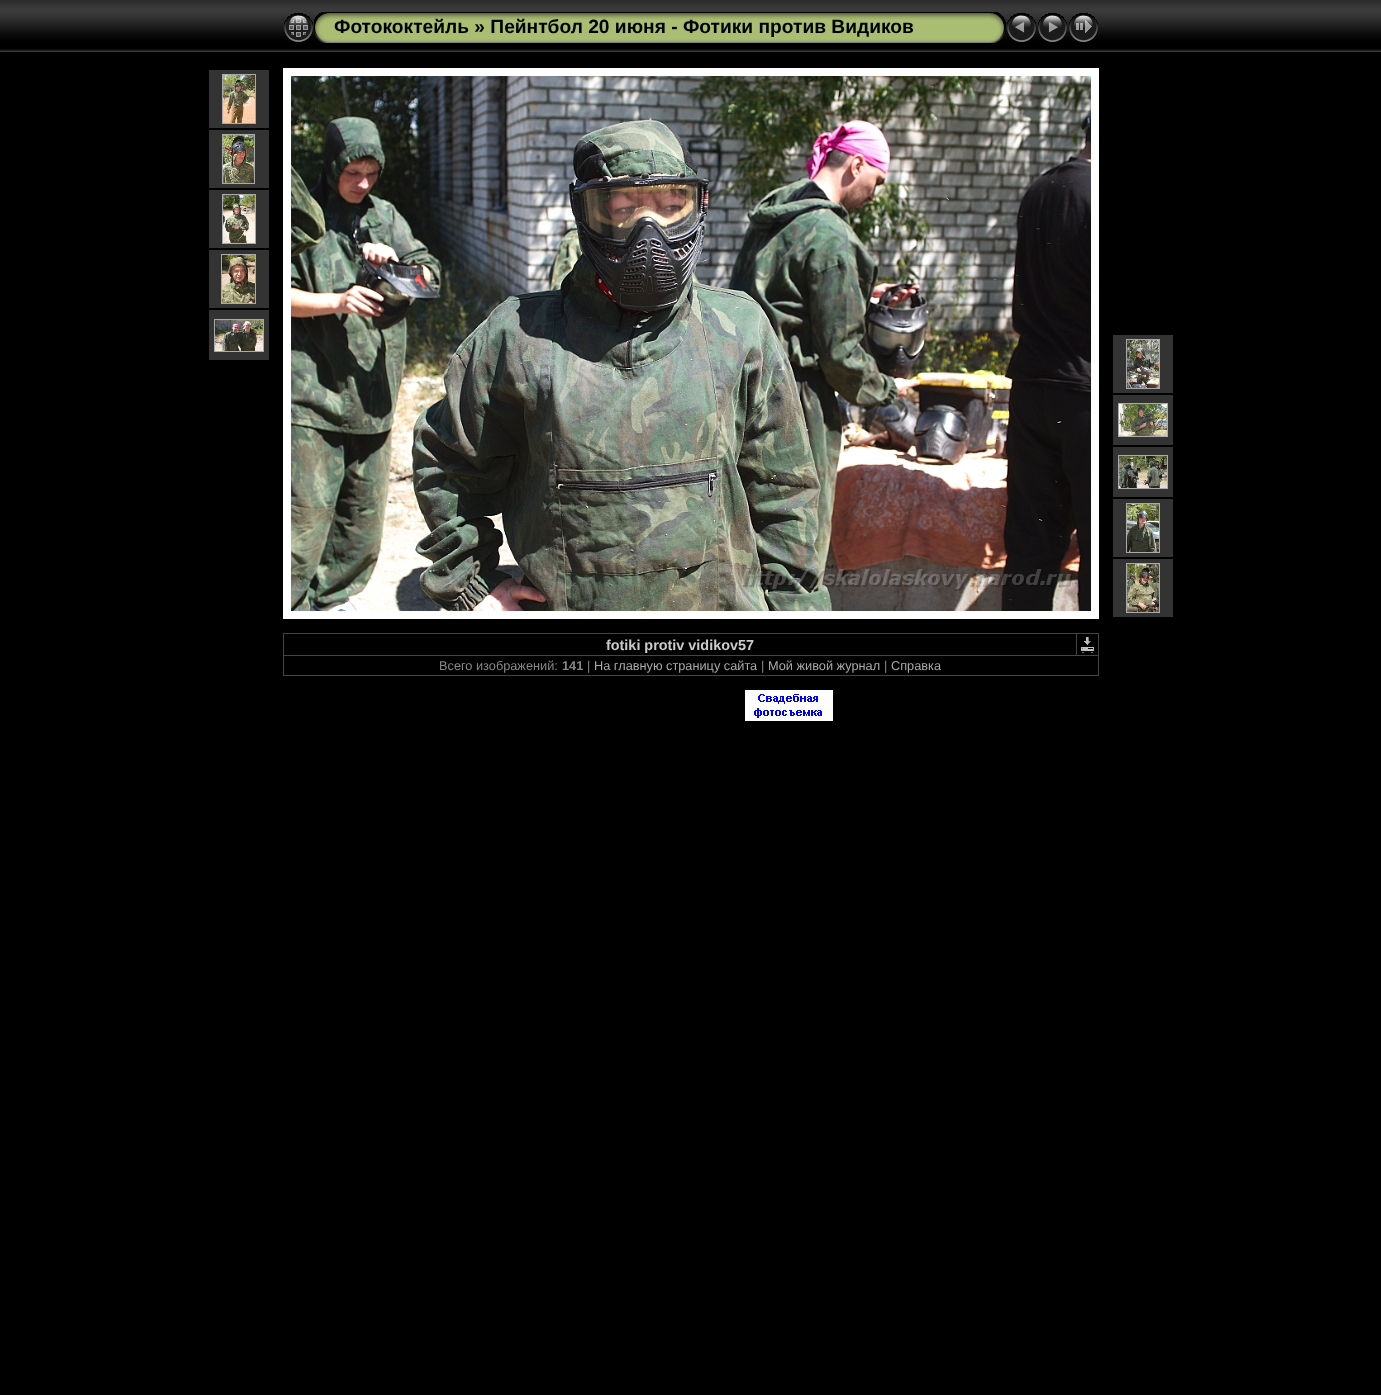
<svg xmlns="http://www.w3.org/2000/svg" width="1381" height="1395">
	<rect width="100%" height="100%" fill="#000000" />
	<image x="0" y="0" width="1381" height="52" href="assets/img1.png" />
	<image x="284" y="13" width="29" height="29" href="assets/img2.png" />
	<image x="314" y="12" width="20" height="31" href="assets/img3.png" />
	<image x="334" y="12" width="652" height="31" href="assets/img4.png" />
	<text x="334" y="33" font-family="Liberation Sans" font-size="19.2" font-weight="700" fill="#000000">Фотококтейль » Пейнтбол 20 июня - Фотики против Видиков</text>
	<image x="986" y="12" width="20" height="31" href="assets/img5.png" />
	<image x="1007" y="13" width="29" height="29" href="assets/img6.png" />
	<image x="1038" y="13" width="29" height="29" href="assets/img7.png" />
	<image x="1069" y="13" width="29" height="29" href="assets/img8.png" />
	<rect x="209" y="70" width="60" height="58" fill="#333333" />
	<rect x="222.5" y="74.5" width="33" height="49" fill="none" stroke="#AAAAAA" />
	<image x="223" y="75" width="32" height="48" href="assets/img9.png" />
	<rect x="209" y="130" width="60" height="58" fill="#333333" />
	<rect x="222.5" y="134.5" width="32" height="49" fill="none" stroke="#AAAAAA" />
	<image x="223" y="135" width="31" height="48" href="assets/img10.png" />
	<rect x="209" y="190" width="60" height="58" fill="#333333" />
	<rect x="222.5" y="194.5" width="33" height="49" fill="none" stroke="#AAAAAA" />
	<image x="223" y="195" width="32" height="48" href="assets/img11.png" />
	<rect x="209" y="250" width="60" height="58" fill="#333333" />
	<rect x="221.5" y="254.5" width="34" height="49" fill="none" stroke="#AAAAAA" />
	<image x="222" y="255" width="33" height="48" href="assets/img12.png" />
	<rect x="209" y="310" width="60" height="50" fill="#333333" />
	<rect x="214.5" y="319.5" width="49" height="32" fill="none" stroke="#AAAAAA" />
	<image x="215" y="320" width="48" height="31" href="assets/img13.png" />
	<rect x="287" y="72" width="808" height="543" fill="none" stroke="#FFFFFF" stroke-width="8" />
	<image x="291" y="76" width="800" height="535" href="assets/img14.png" />
	<rect x="1113" y="335" width="60" height="58" fill="#333333" />
	<rect x="1126.5" y="339.5" width="33" height="49" fill="none" stroke="#AAAAAA" />
	<image x="1127" y="340" width="32" height="48" href="assets/img15.png" />
	<rect x="1113" y="395" width="60" height="50" fill="#333333" />
	<rect x="1118.5" y="403.5" width="49" height="33" fill="none" stroke="#AAAAAA" />
	<image x="1119" y="404" width="48" height="32" href="assets/img16.png" />
	<rect x="1113" y="447" width="60" height="50" fill="#333333" />
	<rect x="1118.5" y="455.5" width="49" height="33" fill="none" stroke="#AAAAAA" />
	<image x="1119" y="456" width="48" height="32" href="assets/img17.png" />
	<rect x="1113" y="499" width="60" height="58" fill="#333333" />
	<rect x="1126.5" y="503.5" width="33" height="49" fill="none" stroke="#AAAAAA" />
	<image x="1127" y="504" width="32" height="48" href="assets/img18.png" />
	<rect x="1113" y="559" width="60" height="58" fill="#333333" />
	<rect x="1126.5" y="563.5" width="33" height="49" fill="none" stroke="#AAAAAA" />
	<image x="1127" y="564" width="32" height="48" href="assets/img19.png" />
	<rect x="283" y="633" width="816" height="1" fill="#444444" />
	<rect x="1098" y="633" width="1" height="43" fill="#444444" />
	<rect x="283" y="675" width="816" height="1" fill="#444444" />
	<rect x="283" y="633" width="1" height="43" fill="#444444" />
	<text x="606" y="650" font-family="Liberation Sans" font-size="14.4" font-weight="700" fill="#CCCCCC">fotiki protiv vidikov57</text>
	<rect x="283" y="655" width="816" height="1" fill="#444444" />
	<rect x="1076" y="633" width="1" height="23" fill="#444444" />
	<image x="1081" y="637" width="13" height="16" href="assets/img20.png" />
	<text x="439" y="670" font-family="Liberation Sans" font-size="12.75" fill="#888888">Всего изображений:</text>
	<text x="562" y="670" font-family="Liberation Sans" font-size="12.75" font-weight="700" fill="#888888">141</text>
	<text x="587" y="670" font-family="Liberation Sans" font-size="12.75" fill="#888888">|</text>
	<text x="594" y="670" font-family="Liberation Sans" font-size="12.75" fill="#AAAAAA">На главную страницу сайта</text>
	<text x="761" y="670" font-family="Liberation Sans" font-size="12.75" fill="#888888">|</text>
	<text x="768" y="670" font-family="Liberation Sans" font-size="12.75" fill="#AAAAAA">Мой живой журнал</text>
	<text x="884" y="670" font-family="Liberation Sans" font-size="12.75" fill="#888888">|</text>
	<text x="891" y="670" font-family="Liberation Sans" font-size="12.75" fill="#AAAAAA">Справка</text>
	<image x="745" y="690" width="88" height="31" href="assets/img21.png" />
</svg>
